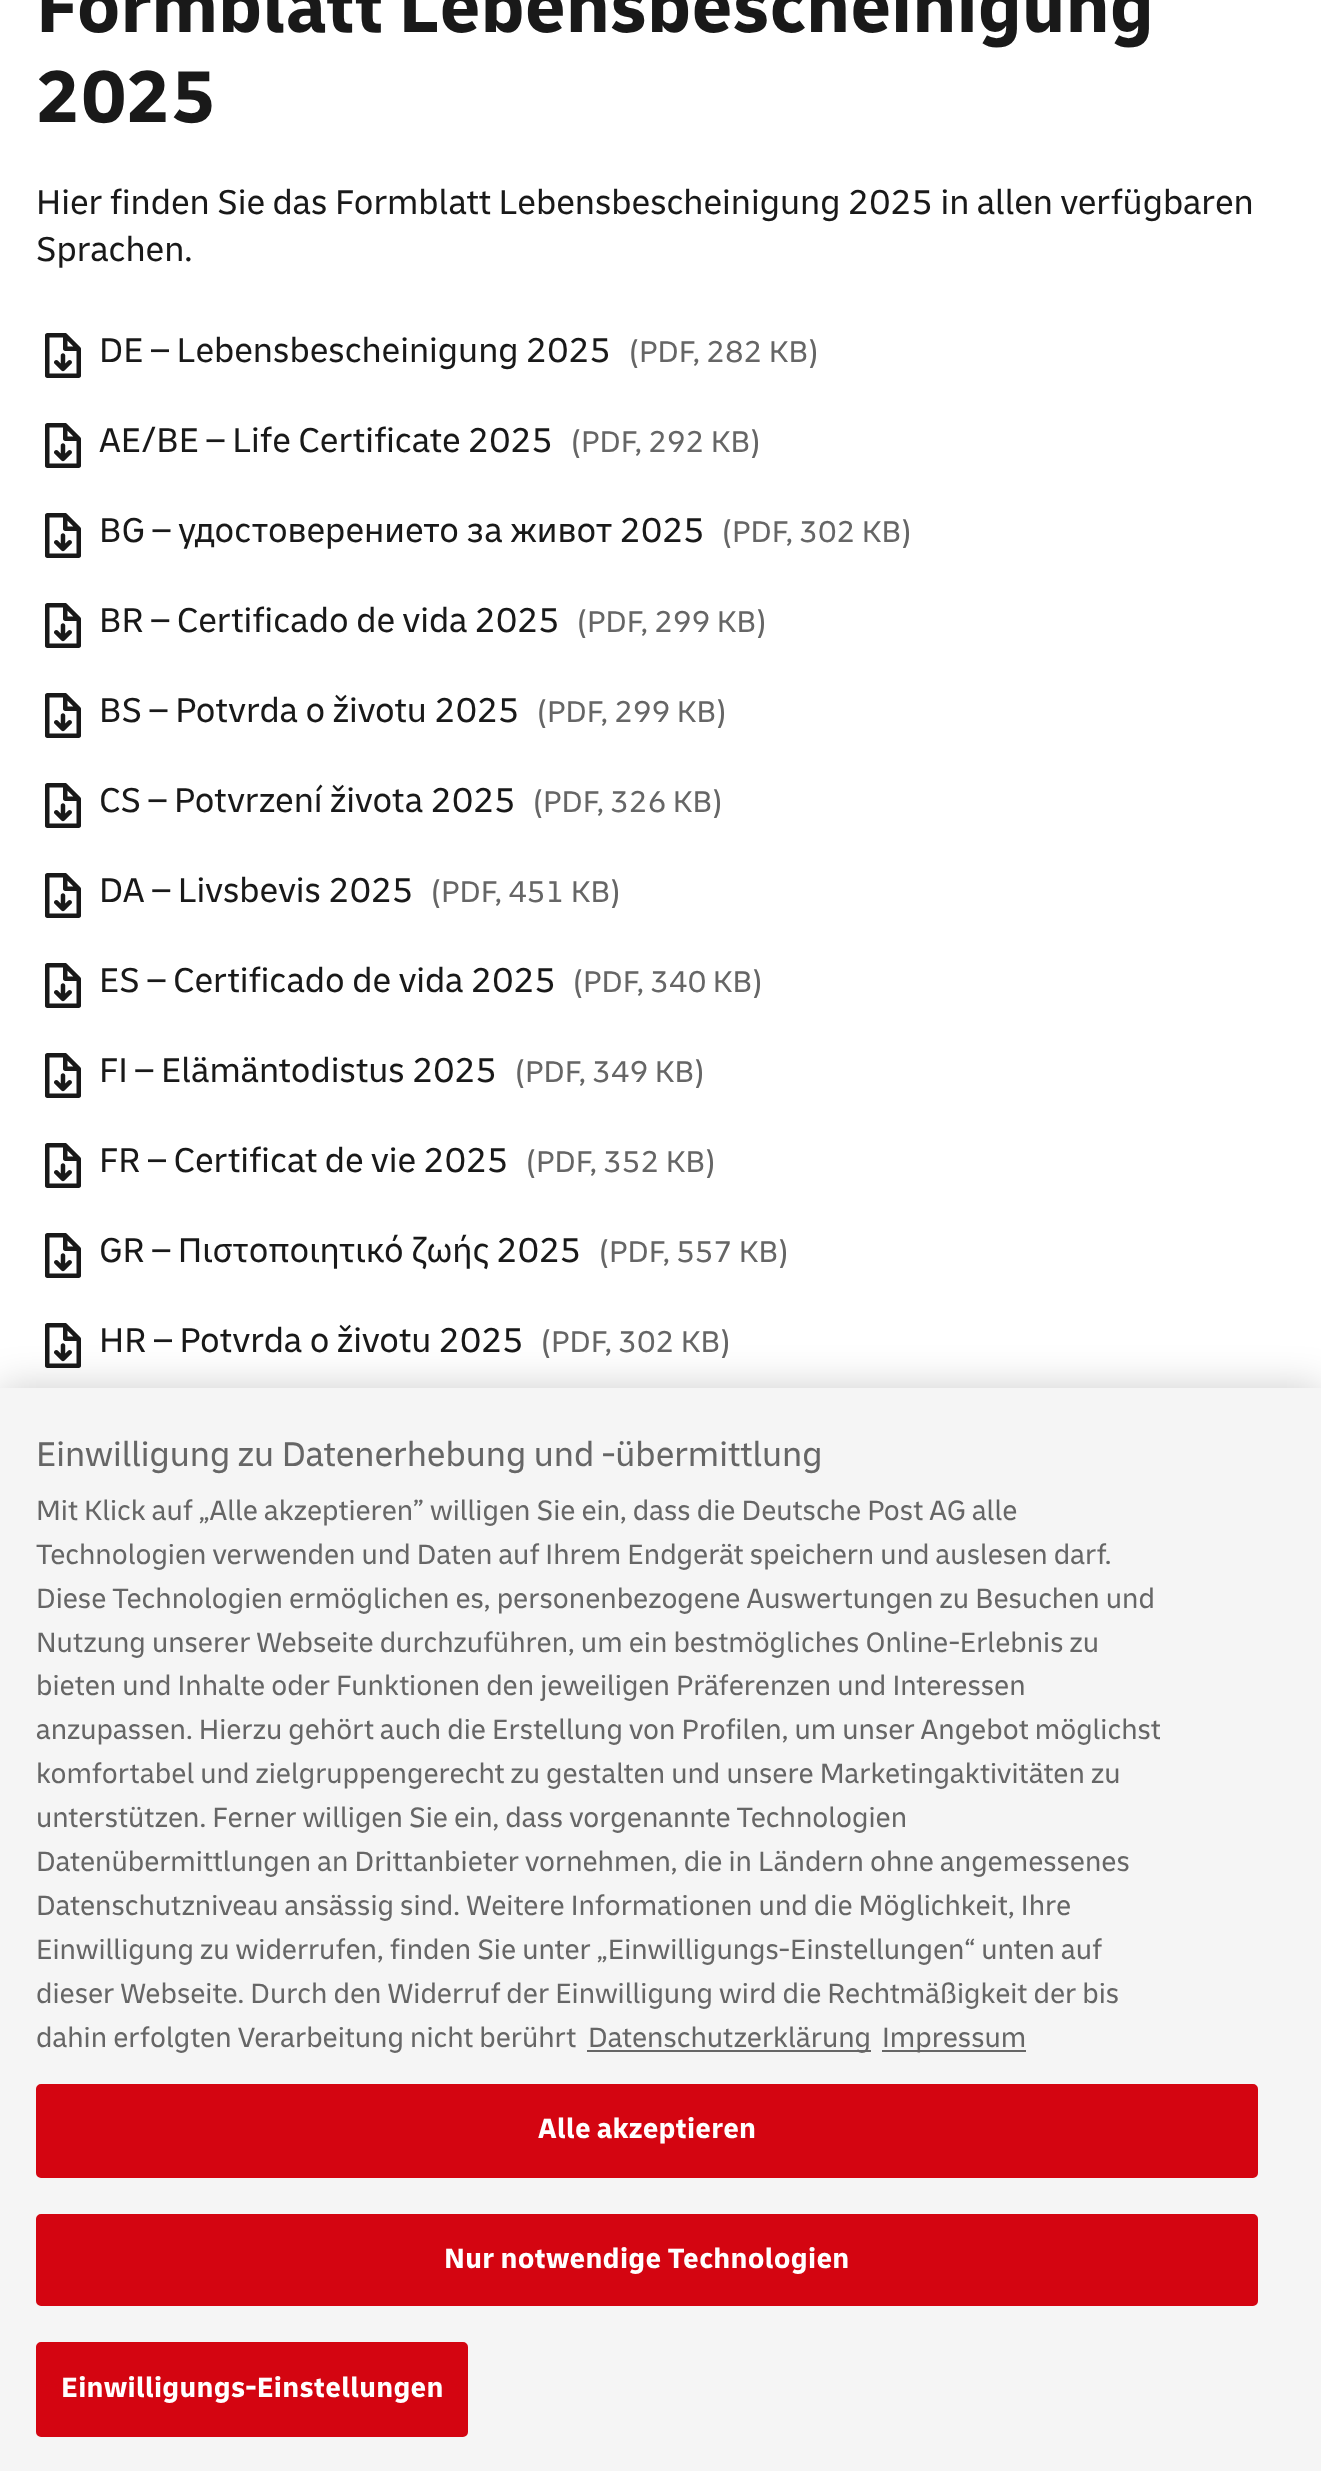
<svg xmlns="http://www.w3.org/2000/svg" width="1321" height="2471">
	<rect width="100%" height="100%" fill="#FFFFFF" />
	<g font-family="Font" font-size="76.5" font-weight="700" fill="#191919">
		<text x="36" y="32">Formblatt Lebensbescheinigung</text>
		<text x="36" y="122">2025</text>
	</g>
	<g font-family="Font" font-size="36" fill="#191919">
		<text x="36" y="214">Hier finden Sie das Formblatt Lebensbescheinigung 2025 in allen verfügbaren</text>
		<text x="36" y="261">Sprachen.</text>
	</g>
	<image x="45" y="333" width="36" height="45" href="assets/img1.png" />
	<text x="99" y="362" font-family="Font" font-size="36" fill="#191919">DE – Lebensbescheinigung 2025</text>
	<text x="628" y="362" font-family="Font" font-size="31.5" fill="#666666">(PDF, 282 KB)</text>
	<image x="45" y="423" width="36" height="45" href="assets/img1.png" />
	<text x="99" y="452" font-family="Font" font-size="36" fill="#191919">AE/BE – Life Certificate 2025</text>
	<text x="570" y="452" font-family="Font" font-size="31.5" fill="#666666">(PDF, 292 KB)</text>
	<image x="45" y="513" width="36" height="45" href="assets/img1.png" />
	<text x="99" y="542" font-family="Font" font-size="36" fill="#191919">BG – удостоверението за живот 2025</text>
	<text x="721" y="542" font-family="Font" font-size="31.5" fill="#666666">(PDF, 302 KB)</text>
	<image x="45" y="603" width="36" height="45" href="assets/img1.png" />
	<text x="99" y="632" font-family="Font" font-size="36" fill="#191919">BR – Certificado de vida 2025</text>
	<text x="576" y="632" font-family="Font" font-size="31.5" fill="#666666">(PDF, 299 KB)</text>
	<image x="45" y="693" width="36" height="45" href="assets/img1.png" />
	<text x="99" y="722" font-family="Font" font-size="36" fill="#191919">BS – Potvrda o životu 2025</text>
	<text x="536" y="722" font-family="Font" font-size="31.5" fill="#666666">(PDF, 299 KB)</text>
	<image x="45" y="783" width="36" height="45" href="assets/img1.png" />
	<text x="99" y="812" font-family="Font" font-size="36" fill="#191919">CS – Potvrzení života 2025</text>
	<text x="532" y="812" font-family="Font" font-size="31.5" fill="#666666">(PDF, 326 KB)</text>
	<image x="45" y="873" width="36" height="45" href="assets/img1.png" />
	<text x="99" y="902" font-family="Font" font-size="36" fill="#191919">DA – Livsbevis 2025</text>
	<text x="430" y="902" font-family="Font" font-size="31.5" fill="#666666">(PDF, 451 KB)</text>
	<image x="45" y="963" width="36" height="45" href="assets/img1.png" />
	<text x="99" y="992" font-family="Font" font-size="36" fill="#191919">ES – Certificado de vida 2025</text>
	<text x="572" y="992" font-family="Font" font-size="31.5" fill="#666666">(PDF, 340 KB)</text>
	<image x="45" y="1053" width="36" height="45" href="assets/img1.png" />
	<text x="99" y="1082" font-family="Font" font-size="36" fill="#191919">FI – Elämäntodistus 2025</text>
	<text x="514" y="1082" font-family="Font" font-size="31.5" fill="#666666">(PDF, 349 KB)</text>
	<image x="45" y="1143" width="36" height="45" href="assets/img1.png" />
	<text x="99" y="1172" font-family="Font" font-size="36" fill="#191919">FR – Certificat de vie 2025</text>
	<text x="525" y="1172" font-family="Font" font-size="31.5" fill="#666666">(PDF, 352 KB)</text>
	<image x="45" y="1233" width="36" height="45" href="assets/img2.png" />
	<text x="99" y="1262" font-family="Font" font-size="36" fill="#191919">GR – Πιστοποιητικό ζωής 2025</text>
	<text x="598" y="1262" font-family="Font" font-size="31.5" fill="#666666">(PDF, 557 KB)</text>
	<image x="45" y="1323" width="36" height="45" href="assets/img1.png" />
	<text x="99" y="1352" font-family="Font" font-size="36" fill="#191919">HR – Potvrda o životu 2025</text>
	<text x="540" y="1352" font-family="Font" font-size="31.5" fill="#666666">(PDF, 302 KB)</text>
	<rect x="0" y="1388" width="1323" height="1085" fill="#000000" fill-opacity="0.2" filter="blur(20px)" />
	<rect x="0" y="1388" width="1321" height="1083" fill="#F5F5F5" />
	<text x="36" y="1466" font-family="Font" font-size="36" fill="#666666">Einwilligung zu Datenerhebung und -übermittlung</text>
	<g font-family="Font" font-size="29.25" fill="#666666">
		<text x="36" y="1520">Mit Klick auf „Alle akzeptieren” willigen Sie ein, dass die Deutsche Post AG alle</text>
		<text x="36" y="1564">Technologien verwenden und Daten auf Ihrem Endgerät speichern und auslesen darf.</text>
		<text x="36" y="1608">Diese Technologien ermöglichen es, personenbezogene Auswertungen zu Besuchen und</text>
		<text x="36" y="1652">Nutzung unserer Webseite durchzuführen, um ein bestmögliches Online-Erlebnis zu</text>
		<text x="36" y="1695">bieten und Inhalte oder Funktionen den jeweiligen Präferenzen und Interessen</text>
		<text x="36" y="1739">anzupassen. Hierzu gehört auch die Erstellung von Profilen, um unser Angebot möglichst</text>
		<text x="36" y="1783">komfortabel und zielgruppengerecht zu gestalten und unsere Marketingaktivitäten zu</text>
		<text x="36" y="1827">unterstützen. Ferner willigen Sie ein, dass vorgenannte Technologien</text>
		<text x="36" y="1871">Datenübermittlungen an Drittanbieter vornehmen, die in Ländern ohne angemessenes</text>
		<text x="36" y="1915">Datenschutzniveau ansässig sind. Weitere Informationen und die Möglichkeit, Ihre</text>
		<text x="36" y="1959">Einwilligung zu widerrufen, finden Sie unter „Einwilligungs-Einstellungen“ unten auf</text>
		<text x="36" y="2003">dieser Webseite. Durch den Widerruf der Einwilligung wird die Rechtmäßigkeit der bis</text>
		<text x="36" y="2047">dahin erfolgten Verarbeitung nicht berührt</text>
	</g>
	<rect x="587" y="2050" width="284" height="2" fill="#666666" />
	<text x="588" y="2047" font-family="Font" font-size="29.25" fill="#666666">Datenschutzerklärung</text>
	<rect x="882" y="2050" width="144" height="2" fill="#666666" />
	<text x="882" y="2047" font-family="Font" font-size="29.25" fill="#666666">Impressum</text>
	<rect x="37" y="2085" width="1220" height="92" rx="4" fill="#D40511" stroke="#D40511" stroke-width="2" />
	<text x="538" y="2138" font-family="Font" font-size="29.25" font-weight="700" letter-spacing="0.3" fill="#FFFFFF">Alle akzeptieren</text>
	<rect x="37" y="2215" width="1220" height="90" rx="4" fill="#D40511" stroke="#D40511" stroke-width="2" />
	<text x="444" y="2268" font-family="Font" font-size="29.25" font-weight="700" letter-spacing="0.3" fill="#FFFFFF">Nur notwendige Technologien</text>
	<rect x="37" y="2343" width="430" height="93" rx="4" fill="#D40511" stroke="#D40511" stroke-width="2" />
	<text x="61" y="2397" font-family="Font" font-size="29.25" font-weight="700" letter-spacing="0.3" fill="#FFFFFF">Einwilligungs-Einstellungen</text>
</svg>
